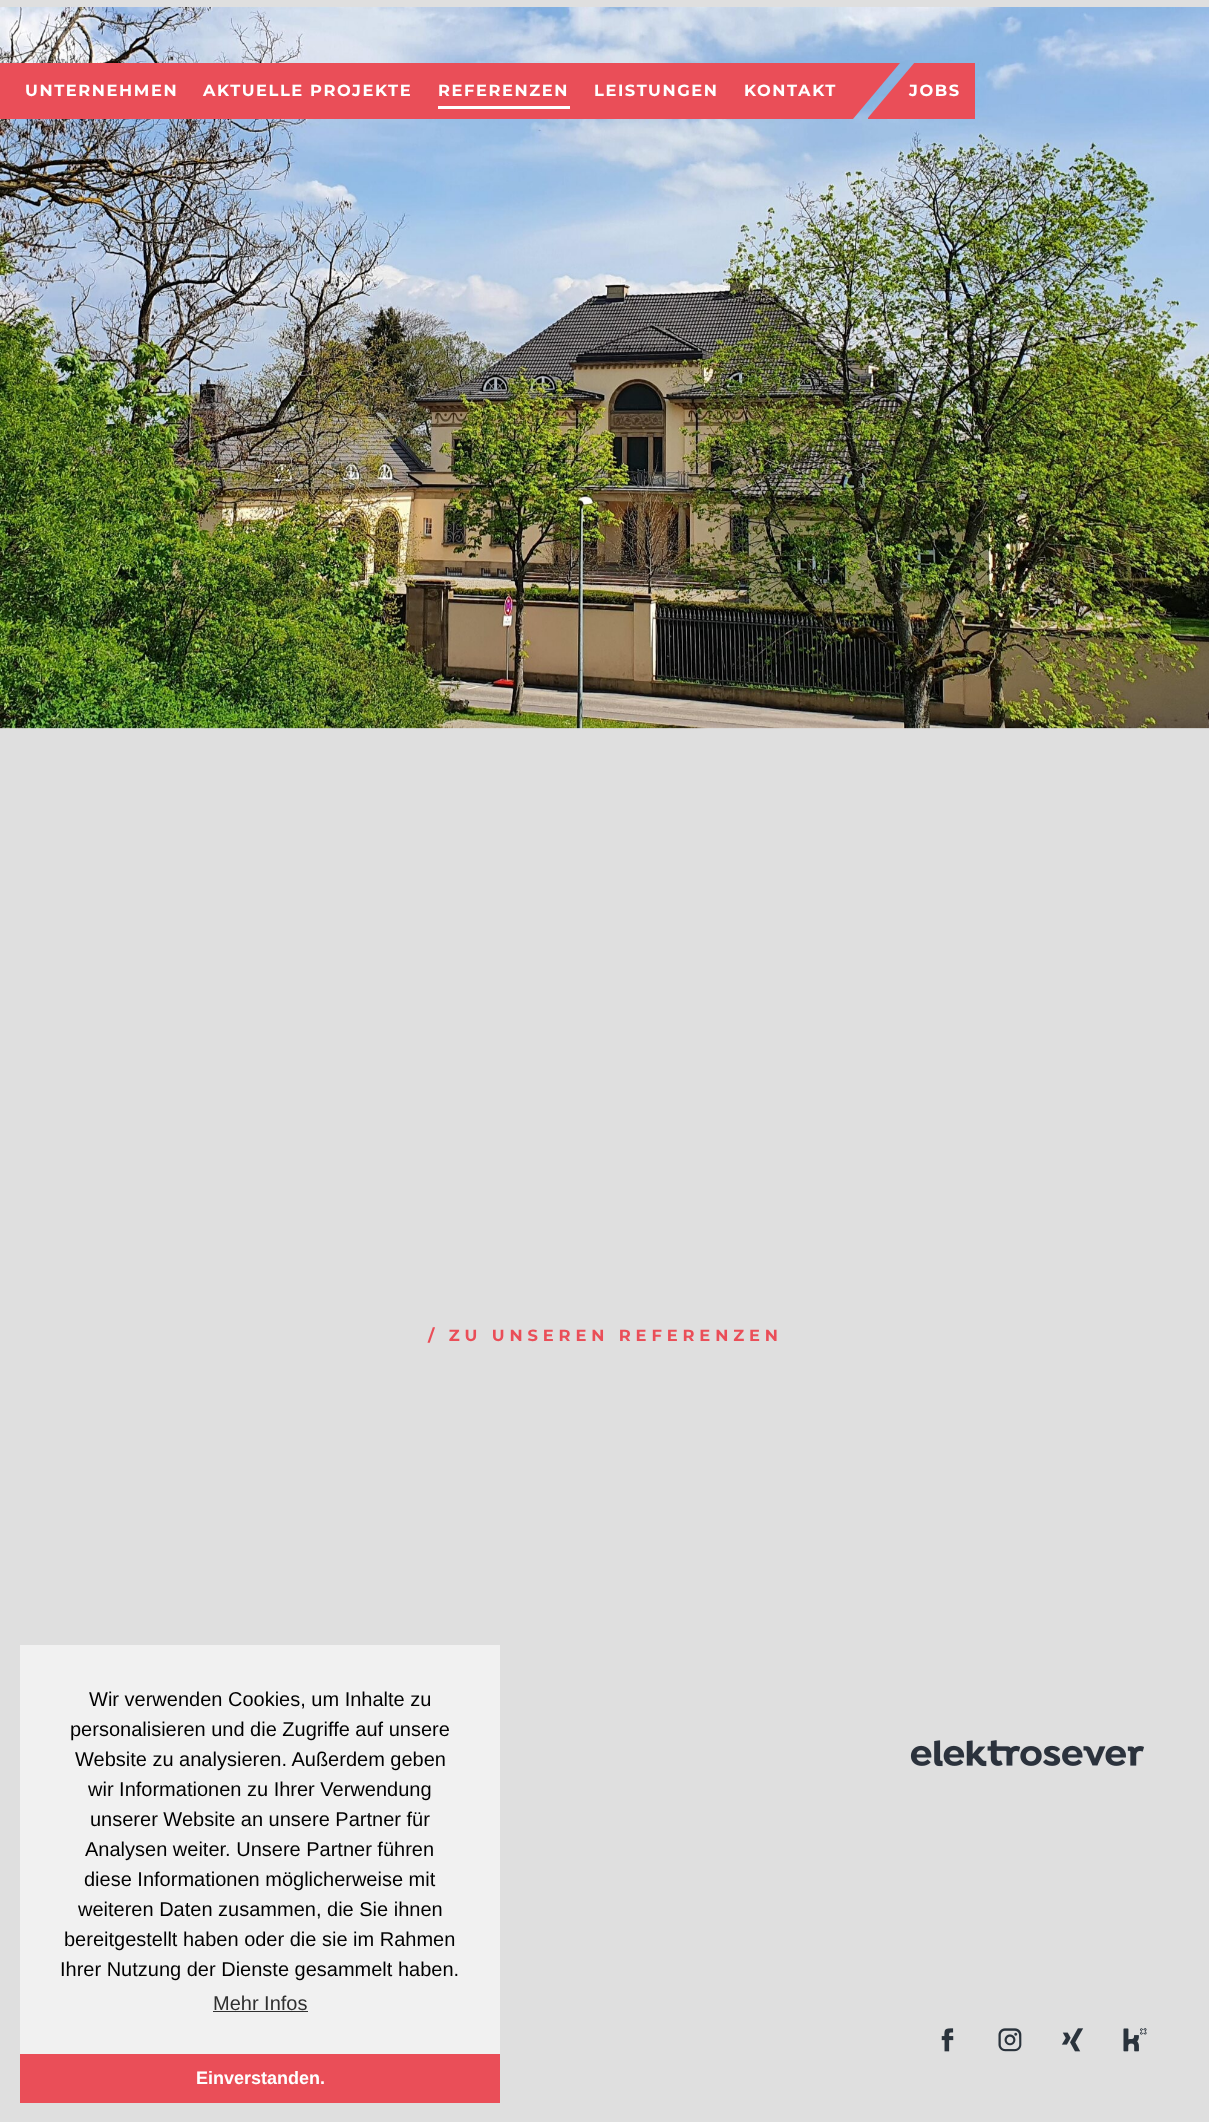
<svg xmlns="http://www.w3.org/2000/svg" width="1209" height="2122">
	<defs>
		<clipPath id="clip1"><rect x="0" y="63" width="605" height="56" /></clipPath>
		<clipPath id="clip2"><rect x="63" y="63" width="837" height="56" /></clipPath>
		<clipPath id="clip3"><rect x="868" y="63" width="107" height="56" /></clipPath>
	</defs>
	<rect width="100%" height="100%" fill="#DFDFDF" />
	<image x="0" y="7" width="1209" height="722" href="assets/img1.png" />
	<g clip-path="url(#clip1)">
		<path d="M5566 119L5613 63H-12V119Z" fill="#EA4E58" />
	</g>
	<g clip-path="url(#clip2)">
		<path d="M853 119L900 63H-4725V119Z" fill="#EA4E58" />
	</g>
	<g font-family="Montserrat" font-size="16.25" font-weight="700" letter-spacing="1.6" fill="#FFFFFF">
		<text x="25" y="96">UNTERNEHMEN</text>
		<text x="203" y="96">AKTUELLE PROJEKTE</text>
		<text x="438" y="96">REFERENZEN</text>
	</g>
	<rect x="438" y="106" width="132" height="3" fill="#FFFFFF" />
	<g font-family="Montserrat" font-size="16.25" font-weight="700" letter-spacing="1.6" fill="#FFFFFF">
		<text x="594" y="96">LEISTUNGEN</text>
		<text x="744" y="96">KONTAKT</text>
	</g>
	<g clip-path="url(#clip3)">
		<path d="M1107 62H915L867 119H1107Z" fill="#EA4E58" />
	</g>
	<text x="909" y="96" font-family="Montserrat" font-size="16.25" font-weight="700" letter-spacing="1.6" fill="#FFFFFF">JOBS</text>
	<text x="428" y="1341" font-family="Montserrat" font-size="16.25" font-weight="700" letter-spacing="4.9" fill="#EA4E58">/ ZU UNSEREN REFERENZEN</text>
	<rect x="20" y="1645" width="480" height="409" fill="#F1F1F1" />
	<g font-family="Liberation Sans" font-size="20" fill="#000000">
		<text x="89" y="1706">Wir verwenden Cookies, um Inhalte zu</text>
		<text x="70" y="1736">personalisieren und die Zugriffe auf unsere</text>
		<text x="75" y="1766">Website zu analysieren. Außerdem geben</text>
		<text x="88" y="1796">wir Informationen zu Ihrer Verwendung</text>
		<text x="90" y="1826">unserer Website an unsere Partner für</text>
		<text x="85" y="1856">Analysen weiter. Unsere Partner führen</text>
		<text x="84" y="1886">diese Informationen möglicherweise mit</text>
		<text x="78" y="1916">weiteren Daten zusammen, die Sie ihnen</text>
		<text x="64" y="1946">bereitgestellt haben oder die sie im Rahmen</text>
		<text x="60" y="1976">Ihrer Nutzung der Dienste gesammelt haben.</text>
	</g>
	<text x="213" y="2010" font-family="Liberation Sans" font-size="20" fill="#303030">Mehr Infos</text>
	<rect x="213" y="2011" width="95" height="1" fill="#303030" />
	<rect x="20" y="2054" width="480" height="49" fill="#EA4E58" />
	<text x="196" y="2084" font-family="Liberation Sans" font-size="18" font-weight="700" fill="#FFFFFF">Einverstanden.</text>
	<image x="910" y="1740" width="234" height="27" href="assets/img2.png" />
	<image x="941" y="2028" width="13" height="24" href="assets/img3.png" />
	<image x="998" y="2028" width="24" height="24" href="assets/img4.png" />
	<image x="1061" y="2028" width="23" height="24" href="assets/img5.png" />
	<image x="1123" y="2028" width="24" height="24" href="assets/img6.png" />
</svg>
